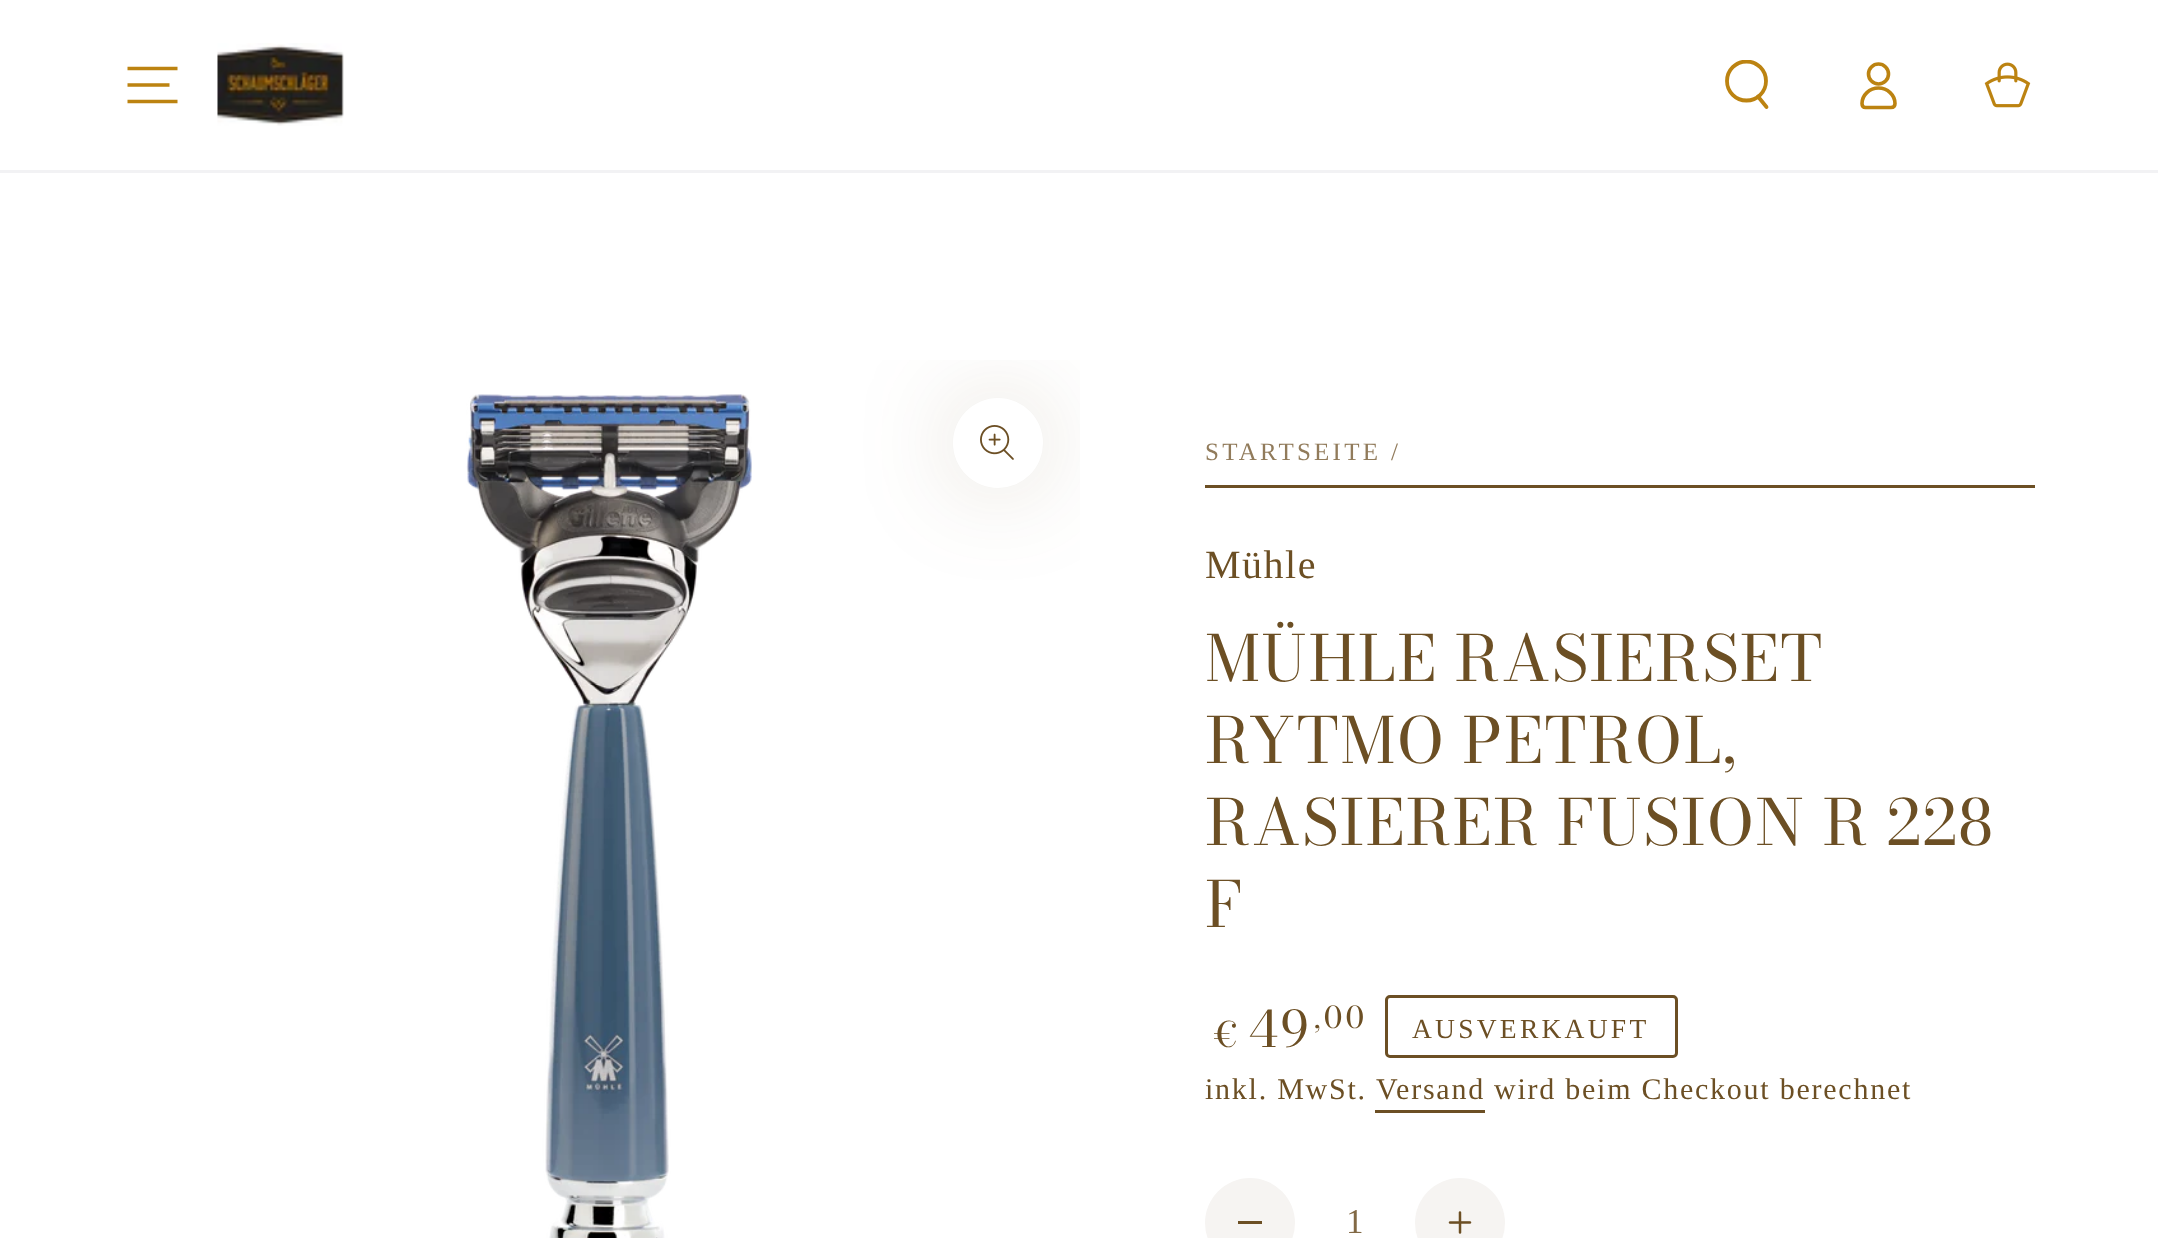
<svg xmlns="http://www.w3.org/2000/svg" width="2158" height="1238">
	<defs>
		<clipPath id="clip1"><rect x="1723" y="60" width="50" height="50" /></clipPath>
		<clipPath id="clip2"><rect x="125" y="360" width="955" height="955" /></clipPath>
	</defs>
	<rect width="100%" height="100%" fill="#FFFFFF" />
	<rect x="0" y="170" width="2158" height="3" fill="#F2F2F4" />
	<path d="M127.5 101.5H177.5M127.5 85H169.5M127.5 68.5H177.5" fill="none" stroke="#BC8311" stroke-width="3.4" />
	<image x="217" y="43" width="127" height="83" href="assets/img1.png" />
	<g clip-path="url(#clip1)">
		<circle cx="1746.5" cy="81" r="19.5" fill="none" stroke="#BC8311" stroke-width="3.8" />
	</g>
	<path d="M1758 96.5L1766.5 107" fill="none" stroke="#BC8311" stroke-width="3.8" stroke-linecap="round" />
	<path d="M1878.5 88C1869.5 88 1862 95 1862 103.5C1862 106 1863.5 107.5 1865.5 107.5H1891C1893.5 107.5 1895 106 1895 103.5C1895 95 1887.5 88 1878.5 88Z" fill="none" stroke="#BC8311" stroke-width="3.6" />
	<circle cx="1878.5" cy="74" r="10" fill="none" stroke="#BC8311" stroke-width="3.6" />
	<image x="1984" y="62" width="47" height="46" href="assets/img2.png" />
	<image x="466" y="394" width="286" height="844" href="assets/img3.png" />
	<g clip-path="url(#clip2)">
		<rect x="953" y="398" width="90" height="90" rx="45" fill="#6C4F24" fill-opacity="0.2" filter="blur(50px)" />
	</g>
	<circle cx="998" cy="443" r="45" fill="#FFFFFF" />
	<image x="980" y="425" width="34" height="35" href="assets/img4.png" />
	<rect x="1205" y="485" width="830" height="3" fill="#6C4F24" />
	<g font-family="Liberation Serif" font-size="25" letter-spacing="3.25" fill="#917B5B">
		<text x="1205" y="460">STARTSEITE</text>
		<text x="1391" y="460">/</text>
	</g>
	<text x="1205" y="578" font-family="Liberation Serif" font-size="40" letter-spacing="1.5" fill="#6C4F24">Mühle</text>
	<g font-family="Bodoni Moda" font-size="63" letter-spacing="1.35" fill="#6C4F24">
		<text x="1205" y="681">MÜHLE RASIERSET</text>
		<text x="1205" y="763">RYTMO PETROL,</text>
		<text x="1205" y="845">RASIERER FUSION R 228</text>
		<text x="1205" y="927">F</text>
	</g>
	<text x="1213" y="1047" font-family="Bodoni Moda" font-size="35" letter-spacing="3.25" fill="#6C4F24">€</text>
	<text x="1248" y="1047" font-family="Bodoni Moda" font-size="50" letter-spacing="3.25" fill="#6C4F24">49</text>
	<text x="1314" y="1028" font-family="Bodoni Moda" font-size="30" letter-spacing="3.25" fill="#6C4F24">,00</text>
	<rect x="1386.5" y="996.5" width="290" height="60" rx="3.5" fill="none" stroke="#6C4F24" stroke-width="3" />
	<text x="1412" y="1038" font-family="Liberation Serif" font-size="27.5" letter-spacing="3.25" fill="#6C4F24">AUSVERKAUFT</text>
	<g font-family="Liberation Serif" font-size="30" letter-spacing="1.75" fill="#6C4F24">
		<text x="1205" y="1099">inkl. MwSt.</text>
		<text x="1376" y="1099">Versand</text>
	</g>
	<rect x="1375" y="1110" width="110" height="3" fill="#6C4F24" />
	<text x="1494" y="1099" font-family="Liberation Serif" font-size="30" letter-spacing="1.75" fill="#6C4F24">wird beim Checkout berechnet</text>
	<circle cx="1250" cy="1223" r="45" fill="#F6F4F2" />
	<rect x="1238" y="1221" width="24" height="3" fill="#6C4F24" />
	<text x="1346" y="1233" font-family="Liberation Serif" font-size="35" fill="#826945">1</text>
	<circle cx="1460" cy="1223" r="45" fill="#F6F4F2" />
	<image x="1448" y="1211" width="24" height="23" href="assets/img5.png" />
</svg>
